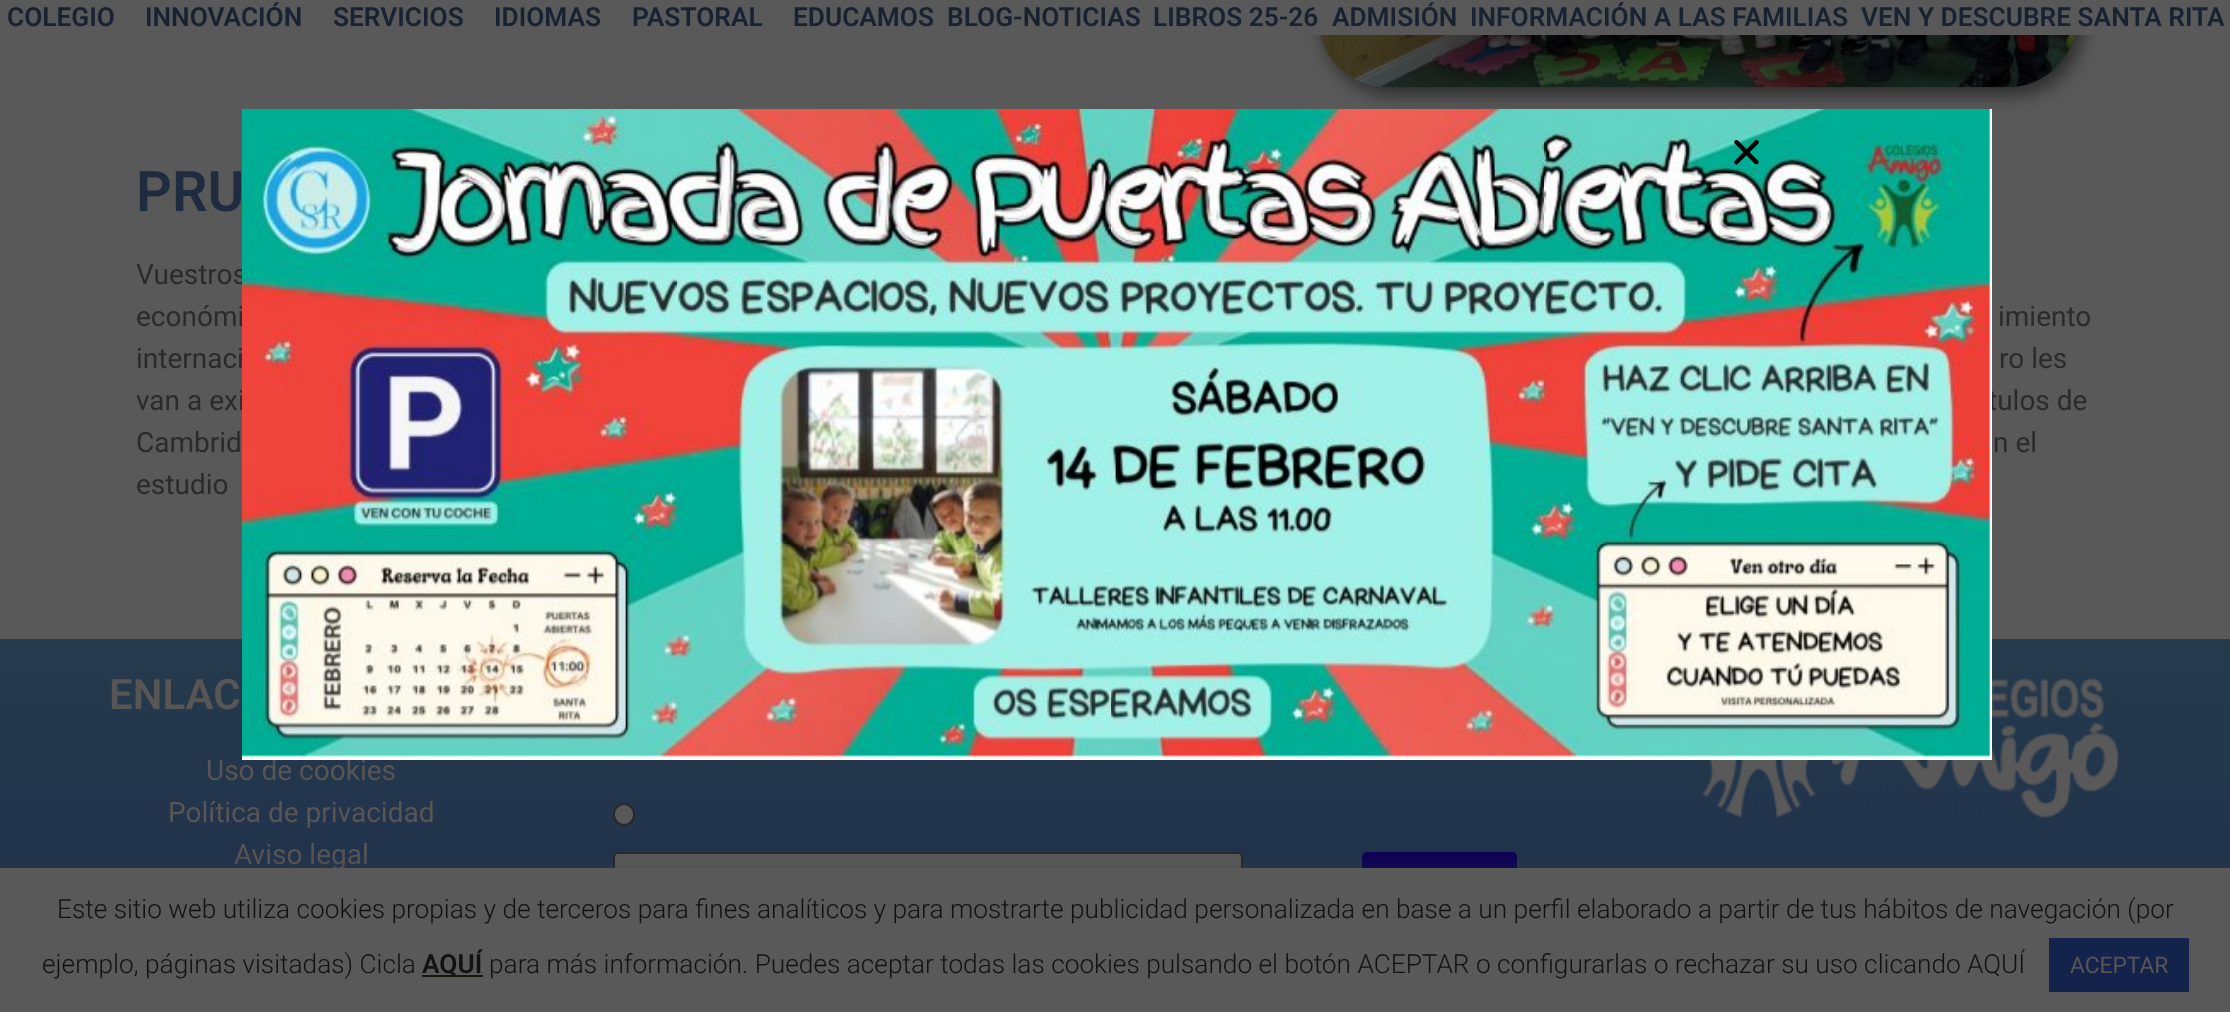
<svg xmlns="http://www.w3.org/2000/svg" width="2230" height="1012">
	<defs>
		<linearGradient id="g1" gradientUnits="userSpaceOnUse" x1="1116" y1="639" x2="1116" y2="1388"><stop offset="0" stop-color="#253B4C" /><stop offset="1" stop-color="#19214E" /></linearGradient>
	</defs>
	<rect width="100%" height="100%" fill="#595959" />
	<rect x="1323" y="-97" width="760" height="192" rx="70" fill="#000000" fill-opacity="0.5" filter="blur(9px)" />
	<image x="1317" y="0" width="761" height="88" href="assets/img3.png" />
	<rect x="1309" y="0" width="788" height="35" fill="#595959" fill-opacity="0.99" />
	<g font-family="Roboto" font-size="26.25" font-weight="600" fill="#192231">
		<text x="7" y="26">COLEGIO</text>
		<text x="145" y="26">INNOVACIÓN</text>
		<text x="333" y="26">SERVICIOS</text>
		<text x="494" y="26">IDIOMAS</text>
		<text x="632" y="26">PASTORAL</text>
		<text x="793" y="26">EDUCAMOS</text>
		<text x="947" y="26">BLOG-NOTICIAS</text>
		<text x="1153" y="26">LIBROS 25-26</text>
		<text x="1332" y="26">ADMISIÓN</text>
		<text x="1470" y="26">INFORMACIÓN A LAS FAMILIAS</text>
		<text x="1861" y="26">VEN Y DESCUBRE SANTA RITA</text>
	</g>
	<g font-family="Roboto" font-size="28" fill="#2B2B2B">
		<text x="136" y="284">Vuestros</text>
		<text x="136" y="326">económi</text>
		<text x="136" y="410">van a exi</text>
		<text x="1988" y="410">tulos de</text>
	</g>
	<rect x="0" y="639" width="2230" height="229" fill="url(#g1)" />
	<text x="206" y="780" font-family="Roboto" font-size="28" fill="#585555">Uso de cookies</text>
	<image x="1702" y="678" width="418" height="140" href="assets/img4.png" />
	<rect x="242" y="109" width="1750" height="651" fill="#FFFFFF" />
	<image x="242" y="109" width="1749" height="649" href="assets/img1.png" />
	<image x="1734" y="139" width="25" height="26" href="assets/img2.png" />
	<text x="136" y="211" font-family="Roboto" font-size="56" font-weight="600" fill="#1F2C3F">PRU</text>
	<g font-family="Roboto" font-size="28" fill="#2B2B2B">
		<text x="1998" y="326">imiento</text>
		<text x="136" y="368">internaci</text>
		<text x="1999" y="368">ro les</text>
		<text x="136" y="452">Cambrid</text>
		<text x="1993" y="452">n el</text>
		<text x="136" y="494">estudio</text>
	</g>
	<text x="109" y="709" font-family="Roboto" font-size="42" font-weight="600" fill="#585555">ENLAC</text>
	<g font-family="Roboto" font-size="28" fill="#585555">
		<text x="168" y="822">Política de privacidad</text>
		<text x="234" y="864">Aviso legal</text>
	</g>
	<rect x="614" y="804" width="20" height="21" rx="10" fill="#595959" stroke="#292929" stroke-width="2" />
	<rect x="614" y="853" width="628" height="68" rx="4" fill="#595959" stroke="#25282C" stroke-width="2" />
	<rect x="1362" y="852" width="155" height="70" rx="5" fill="#0D0154" />
	<rect x="0" y="866" width="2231" height="146" fill="#3C3C3C" fill-opacity="0.3" filter="blur(9px)" />
	<rect x="0" y="868" width="2230" height="144" fill="#595959" />
	<g font-family="Roboto" font-size="26.25" font-weight="300" fill="#121212">
		<text x="57" y="918">Este sitio web utiliza cookies propias y de terceros para fines analíticos y para mostrarte publicidad personalizada en base a un perfil elaborado a partir de tus hábitos de navegación (por</text>
		<text x="42" y="973">ejemplo, páginas visitadas) Cicla</text>
	</g>
	<rect x="422" y="975" width="61" height="2" fill="#171710" />
	<text x="422" y="973" font-family="Roboto" font-size="26.25" font-weight="600" fill="#121212">AQUÍ</text>
	<g font-family="Roboto" font-size="26.25" font-weight="300" fill="#121212">
		<text x="489" y="973">para más información. Puedes aceptar todas las cookies pulsando el botón ACEPTAR o configurarlas o rechazar su uso clicando</text>
		<text x="1967" y="973">AQUÍ</text>
	</g>
	<rect x="2049" y="938" width="140" height="54" fill="#13234B" />
	<text x="2070" y="973" font-family="Roboto" font-size="22.75" fill="#585555">ACEPTAR</text>
</svg>
